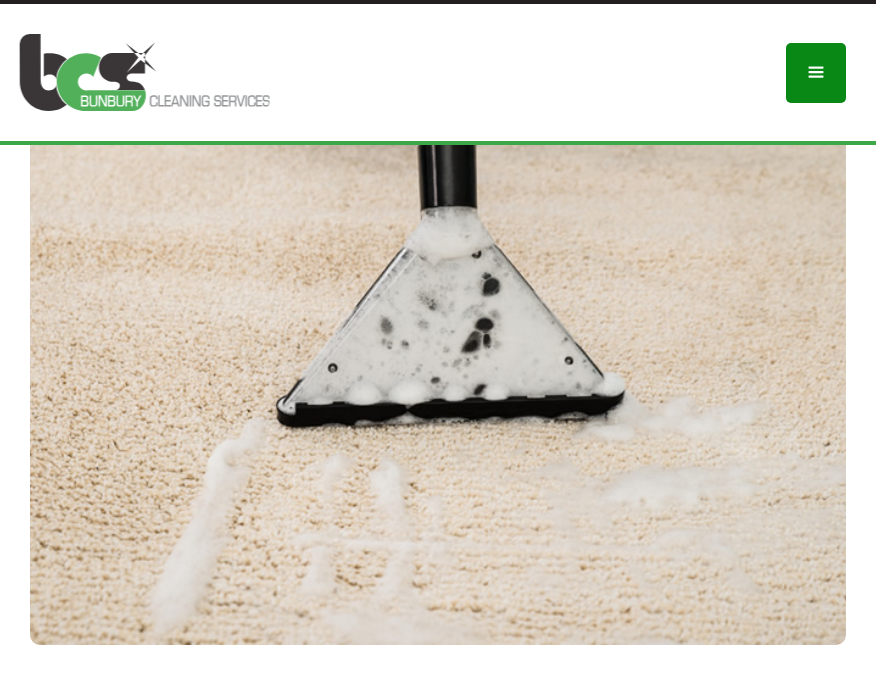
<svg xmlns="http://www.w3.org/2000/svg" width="876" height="673">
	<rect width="100%" height="100%" fill="#FFFFFF" />
	<rect x="0" y="0" width="876" height="4" fill="#231F20" />
	<image x="19" y="34" width="251" height="77" href="assets/img1.png" />
	<rect x="786" y="43" width="60" height="60" rx="5" fill="#0A8816" />
	<image x="808" y="66" width="16" height="12" href="assets/img2.png" />
	<rect x="0" y="141" width="876" height="4" fill="#3EA748" />
	<image x="30" y="145" width="816" height="500" href="assets/img3.png" />
</svg>
